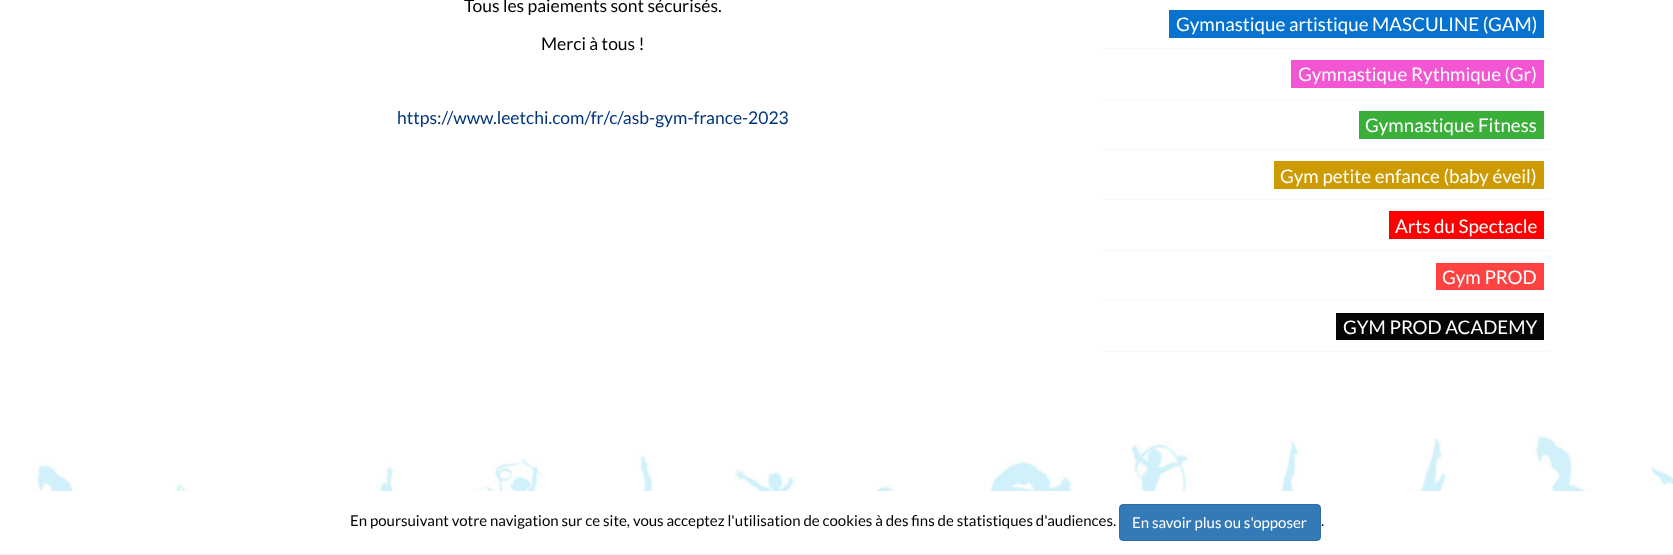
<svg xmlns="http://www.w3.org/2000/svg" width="1673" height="555">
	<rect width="100%" height="100%" fill="#FFFFFF" />
	<g font-family="Lato" font-size="17.5" fill="#000000">
		<text x="464" y="12">Tous les paiements sont sécurisés.</text>
		<text x="541" y="50">Merci à tous !</text>
	</g>
	<text x="397" y="124" font-family="Lato" font-size="17.5" fill="#01357C">https://www.leetchi.com/fr/c/asb-gym-france-2023</text>
	<rect x="1100" y="48" width="450" height="1" fill="#F8F8F8" />
	<rect x="1169" y="10" width="375" height="28" fill="#0572CF" />
	<text x="1176" y="31" font-family="Lato" font-size="18.75" fill="#FFFFFF">Gymnastique artistique MASCULINE (GAM)</text>
	<rect x="1100" y="99" width="450" height="1" fill="#F8F8F8" />
	<rect x="1291" y="60" width="253" height="28" fill="#F256D3" />
	<text x="1298" y="81" font-family="Lato" font-size="18.75" fill="#FFFFFF">Gymnastique Rythmique (Gr)</text>
	<rect x="1100" y="149" width="450" height="1" fill="#F8F8F8" />
	<rect x="1359" y="111" width="185" height="28" fill="#3AB03A" />
	<text x="1365" y="132" font-family="Lato" font-size="18.75" fill="#FFFFFF">Gymnastique Fitness</text>
	<rect x="1100" y="199" width="450" height="1" fill="#F8F8F8" />
	<rect x="1274" y="161" width="270" height="28" fill="#CD9B00" />
	<text x="1280" y="183" font-family="Lato" font-size="18.75" fill="#FFFFFF">Gym petite enfance (baby éveil)</text>
	<rect x="1100" y="250" width="450" height="1" fill="#F8F8F8" />
	<rect x="1389" y="211" width="155" height="28" fill="#FF0000" />
	<text x="1395" y="233" font-family="Lato" font-size="18.75" fill="#FFFFFF">Arts du Spectacle</text>
	<rect x="1100" y="300" width="450" height="1" fill="#F8F8F8" />
	<rect x="1436" y="263" width="108" height="27" fill="#FF4242" />
	<text x="1442" y="284" font-family="Lato" font-size="18.75" fill="#FFFFFF">Gym PROD</text>
	<rect x="1100" y="351" width="450" height="1" fill="#F8F8F8" />
	<rect x="1336" y="313" width="208" height="27" fill="#060606" />
	<text x="1343" y="334" font-family="Lato" font-size="18.75" fill="#FFFFFF">GYM PROD ACADEMY</text>
	<image x="32" y="429" width="1641" height="62" href="assets/img1.png" />
	<rect x="0" y="554" width="1673" height="1" fill="#EEEEEE" />
	<text x="350" y="526" font-family="Lato" font-size="15" fill="#000000">En poursuivant votre navigation sur ce site, vous acceptez l'utilisation de cookies à des fins de statistiques d'audiences.</text>
	<rect x="1119.5" y="504.5" width="201" height="36" rx="3.5" fill="#337AB7" stroke="#2E6DA4" />
	<text x="1132" y="528" font-family="Lato" font-size="15" fill="#FFFFFF">En savoir plus ou s'opposer</text>
	<text x="1321" y="526" font-family="Lato" font-size="15" fill="#000000">.</text>
</svg>
